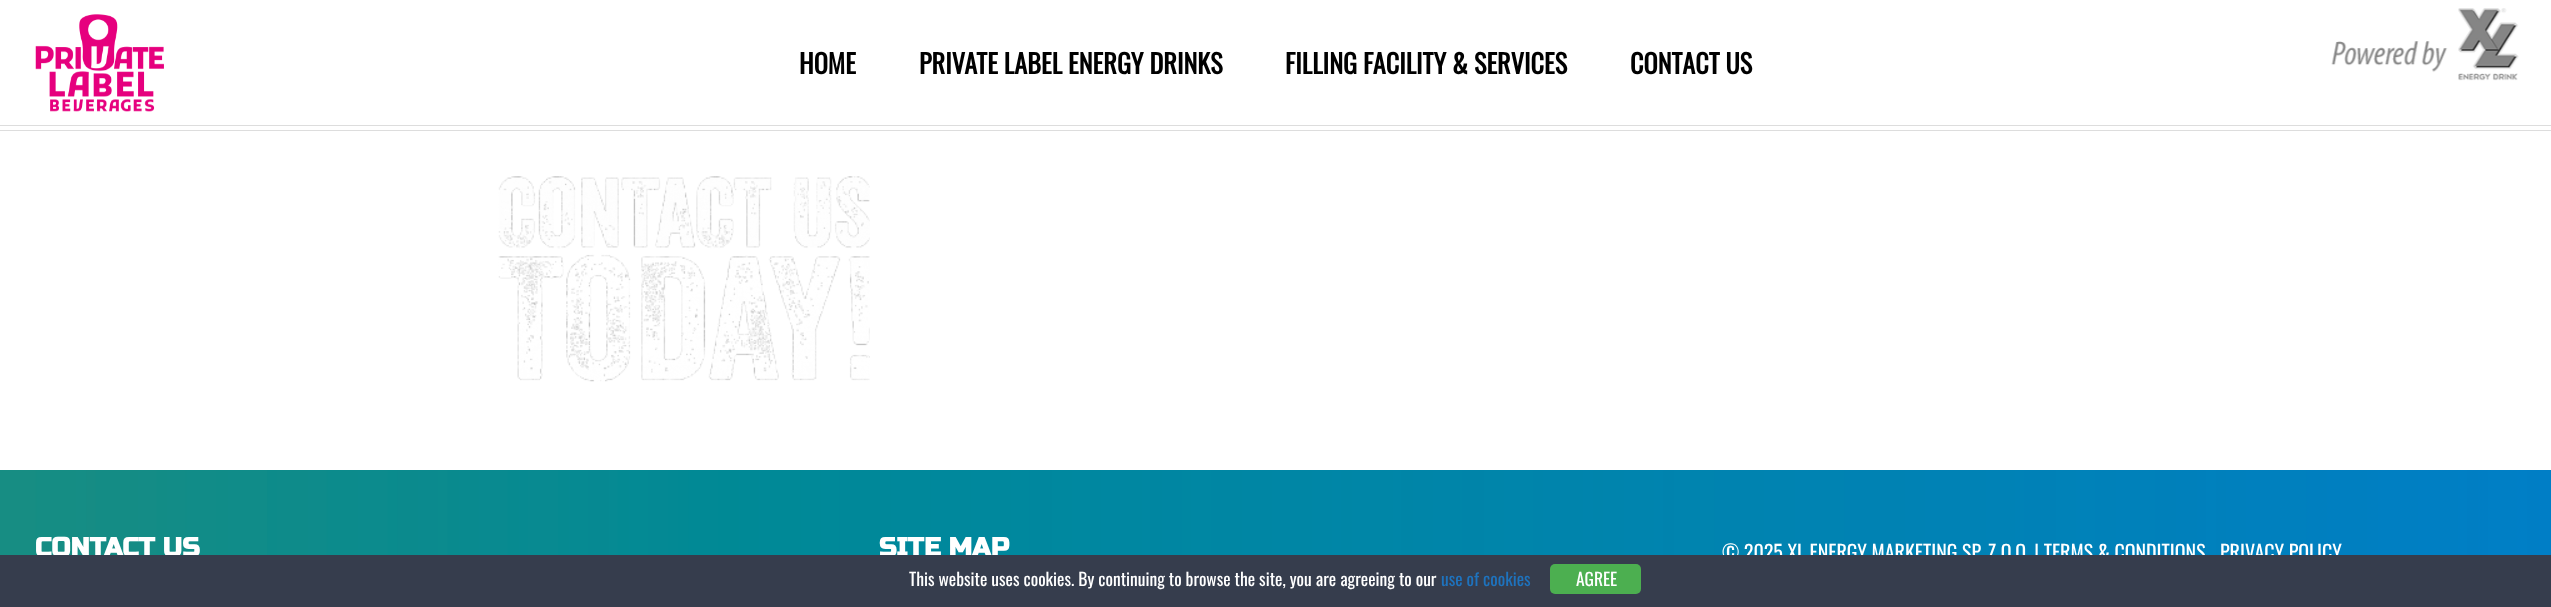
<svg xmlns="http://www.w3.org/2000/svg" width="2551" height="607">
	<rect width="100%" height="100%" fill="#FFFFFF" />
	<rect x="0" y="125" width="2551" height="1" fill="#DDDDDD" />
	<image x="35" y="14" width="129" height="98" href="assets/img1.png" />
	<g font-family="Oswald" font-size="26.25" font-weight="700" fill="#000000">
		<text x="799" y="74">HOME</text>
		<text x="919" y="74">PRIVATE LABEL ENERGY DRINKS</text>
		<text x="1285" y="74">FILLING FACILITY &amp; SERVICES</text>
		<text x="1630" y="74">CONTACT US</text>
	</g>
	<image x="2331" y="8" width="188" height="73" href="assets/img2.png" />
	<rect x="0" y="130" width="2551" height="1" fill="#DDDDDD" />
	<image x="498" y="176" width="372" height="206" href="assets/img3.png" />
	<image x="0" y="470" width="2551" height="85" href="assets/img4.png" />
	<g font-family="Russo One" font-size="26.25" font-weight="700" fill="#FFFFFF">
		<text x="35" y="556">CONTACT US</text>
		<text x="879" y="556">SITE MAP</text>
	</g>
	<g font-family="Oswald" font-size="20" fill="#FFFFFF">
		<text x="1722" y="560">© 2025 XL ENERGY MARKETING SP. Z O.O. | TERMS &amp; CONDITIONS</text>
		<text x="2220" y="560">PRIVACY POLICY</text>
	</g>
	<rect x="0" y="555" width="2551" height="52" fill="#363D4D" />
	<text x="909" y="586" font-family="Oswald" font-size="17.5" fill="#FFFFFF">This website uses cookies. By continuing to browse the site, you are agreeing to our</text>
	<text x="1441" y="586" font-family="Oswald" font-size="17.5" fill="#1E73BE">use of cookies</text>
	<rect x="1550" y="564" width="91" height="30" rx="5" fill="#4CAF50" />
	<text x="1576" y="586" font-family="Oswald" font-size="17.5" fill="#FFFFFF">AGREE</text>
</svg>
